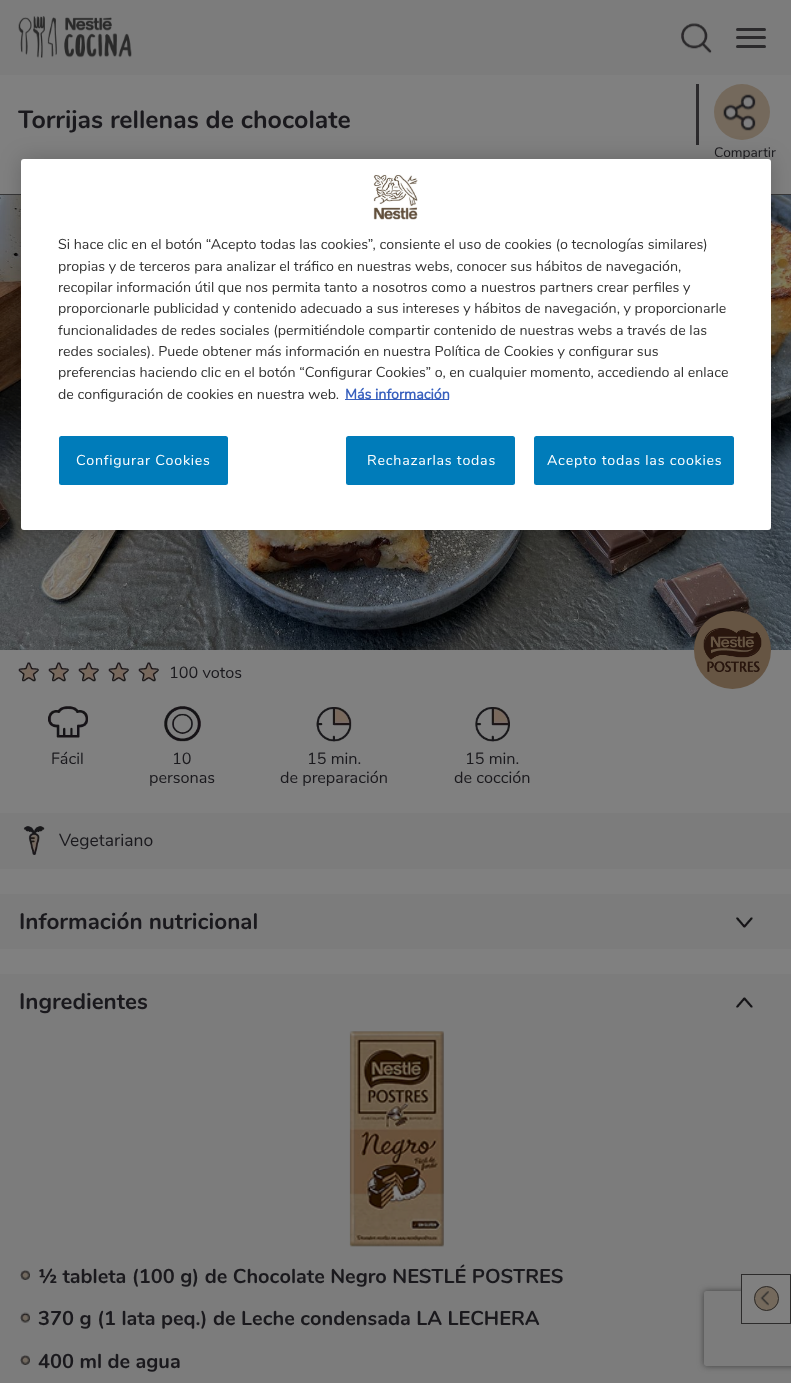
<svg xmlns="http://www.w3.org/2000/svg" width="791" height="1383">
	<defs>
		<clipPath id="clip1"><path d="M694 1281H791V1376H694ZM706.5 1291H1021.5C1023 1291 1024 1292 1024 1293.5V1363.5C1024 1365 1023 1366 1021.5 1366H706.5C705 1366 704 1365 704 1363.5V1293.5C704 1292 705 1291 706.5 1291Z" clip-rule="evenodd" /></clipPath>
	</defs>
	<rect width="100%" height="100%" fill="#808080" />
	<rect x="0" y="0" width="791" height="75" fill="#7C7C7C" />
	<image x="18" y="16" width="114" height="42" href="assets/img1.png" />
	<image x="681" y="23" width="31" height="31" href="assets/img2.png" />
	<rect x="736" y="28" width="30" height="3" rx="1.5" fill="#2B2A2C" />
	<rect x="736" y="36" width="30" height="3" rx="1.5" fill="#2B2A2C" />
	<rect x="736" y="45" width="30" height="3" rx="1.5" fill="#2B2A2C" />
	<rect x="0" y="194" width="791" height="1" fill="#373738" />
	<text x="18" y="128" font-family="Nunito" font-size="25" font-weight="700" fill="#1A191D">Torrijas rellenas de chocolate</text>
	<circle cx="742" cy="112" r="28" fill="#74695C" />
	<rect x="696" y="84" width="3" height="61" fill="#2B2A2C" />
	<image x="723" y="94" width="33" height="37" href="assets/img3.png" />
	<text x="714" y="157" font-family="Nunito" font-size="13.75" fill="#1A191D">Compartir</text>
	<image x="0" y="195" width="791" height="455" href="assets/img4.png" />
	<rect x="694" y="611" width="77" height="78" rx="38.5" fill="#665543" />
	<image x="703" y="628" width="59" height="44" href="assets/img5.png" />
	<image x="18" y="662" width="21" height="20" href="assets/img6.png" />
	<image x="48" y="662" width="21" height="20" href="assets/img6.png" />
	<image x="78" y="662" width="21" height="20" href="assets/img6.png" />
	<image x="108" y="662" width="21" height="20" href="assets/img7.png" />
	<image x="138" y="662" width="21" height="20" href="assets/img7.png" />
	<text x="169" y="678" font-family="Nunito" font-size="16.25" fill="#1A191D">100 votos</text>
	<image x="48" y="706" width="40" height="32" href="assets/img8.png" />
	<text x="51" y="764" font-family="Nunito" font-size="16.25" fill="#1A191D">Fácil</text>
	<image x="164" y="706" width="37" height="36" href="assets/img9.png" />
	<g font-family="Nunito" font-size="16.25" fill="#1A191D">
		<text x="172" y="764">10</text>
		<text x="149" y="783">personas</text>
	</g>
	<image x="316" y="707" width="36" height="35" href="assets/img10.png" />
	<g font-family="Nunito" font-size="16.25" fill="#1A191D">
		<text x="307" y="764">15 min.</text>
		<text x="280" y="783">de preparación</text>
	</g>
	<image x="475" y="707" width="35" height="35" href="assets/img11.png" />
	<g font-family="Nunito" font-size="16.25" fill="#1A191D">
		<text x="465" y="764">15 min.</text>
		<text x="454" y="783">de cocción</text>
	</g>
	<rect x="0" y="813" width="791" height="56" fill="#7C7C7C" />
	<image x="23" y="826" width="22" height="29" href="assets/img12.png" />
	<text x="59" y="846" font-family="Nunito" font-size="17.5" fill="#1A191D">Vegetariano</text>
	<rect x="0" y="894" width="791" height="55" fill="#7C7C7C" />
	<text x="19" y="929" font-family="Nunito" font-size="22.5" font-weight="700" fill="#1A191D">Información nutricional</text>
	<image x="736" y="917" width="17" height="11" href="assets/img13.png" />
	<rect x="0" y="974" width="791" height="409" fill="#7C7C7C" />
	<text x="19" y="1009" font-family="Nunito" font-size="22.5" font-weight="700" fill="#1A191D">Ingredientes</text>
	<image x="736" y="997" width="17" height="11" href="assets/img14.png" />
	<image x="349" y="1031" width="95" height="216" href="assets/img15.png" />
	<image x="20" y="1270" width="10" height="10" href="assets/img16.png" />
	<text x="38" y="1283" font-family="Nunito" font-size="20" font-weight="700" fill="#1A191D">½ tableta (100 g) de Chocolate Negro NESTLÉ POSTRES</text>
	<image x="20" y="1312" width="10" height="11" href="assets/img17.png" />
	<text x="38" y="1325" font-family="Nunito" font-size="20" font-weight="700" fill="#1A191D">370 g (1 lata peq.) de Leche condensada LA LECHERA</text>
	<image x="20" y="1355" width="10" height="10" href="assets/img16.png" />
	<text x="38" y="1368" font-family="Nunito" font-size="20" font-weight="700" fill="#1A191D">400 ml de agua</text>
	<g clip-path="url(#clip1)">
		<rect x="704" y="1291" width="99" height="75" rx="2.5" fill="#404040" filter="blur(3px)" />
	</g>
	<rect x="741.5" y="1274.5" width="49" height="49" fill="#808080" stroke="#2C2B2B" />
	<circle cx="766.5" cy="1298.5" r="12.5" fill="#74695C" />
	<image x="760" y="1291" width="9" height="15" href="assets/img18.png" />
	<circle cx="766.5" cy="1298.5" r="12" fill="none" stroke="#2C2B2B" />
	<rect x="21" y="159" width="750" height="371" rx="3" fill="#000000" fill-opacity="0.2" filter="blur(11px)" />
	<rect x="21" y="159" width="750" height="371" rx="3" fill="#FFFFFF" />
	<image x="373" y="174" width="45" height="46" href="assets/img19.png" />
	<g font-family="Nunito" font-size="14.25" fill="#333333">
		<text x="58" y="249">Si hace clic en el botón “Acepto todas las cookies”, consiente el uso de cookies (o tecnologías similares)</text>
		<text x="58" y="271">propias y de terceros para analizar el tráfico en nuestras webs, conocer sus hábitos de navegación,</text>
		<text x="58" y="292">recopilar información útil que nos permita tanto a nosotros como a nuestros partners crear perfiles y</text>
		<text x="58" y="313">proporcionarle publicidad y contenido adecuado a sus intereses y hábitos de navegación, y proporcionarle</text>
		<text x="58" y="335">funcionalidades de redes sociales (permitiéndole compartir contenido de nuestras webs a través de las</text>
		<text x="58" y="356">redes sociales). Puede obtener más información en nuestra Política de Cookies y configurar sus</text>
		<text x="58" y="377">preferencias haciendo clic en el botón “Configurar Cookies” o, en cualquier momento, accediendo al enlace</text>
		<text x="58" y="399">de configuración de cookies en nuestra web.</text>
	</g>
	<rect x="345" y="399" width="104" height="1" fill="#3860BE" />
	<text x="345" y="399" font-family="'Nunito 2'" font-size="14.25" font-weight="700" fill="#3860BE">Más información</text>
	<rect x="59" y="436" width="169" height="49" rx="2.5" fill="#007CBA" />
	<text x="76" y="465" font-family="Nunito" font-size="14.25" letter-spacing="0.75" fill="#FFFFFF">Configurar Cookies</text>
	<rect x="346" y="436" width="169" height="49" rx="2.5" fill="#007CBA" />
	<text x="367" y="465" font-family="Nunito" font-size="14.25" letter-spacing="0.75" fill="#FFFFFF">Rechazarlas todas</text>
	<rect x="534" y="436" width="200" height="49" rx="2.5" fill="#007CBA" />
	<text x="547" y="465" font-family="Nunito" font-size="14.25" letter-spacing="0.75" fill="#FFFFFF">Acepto todas las cookies</text>
</svg>
